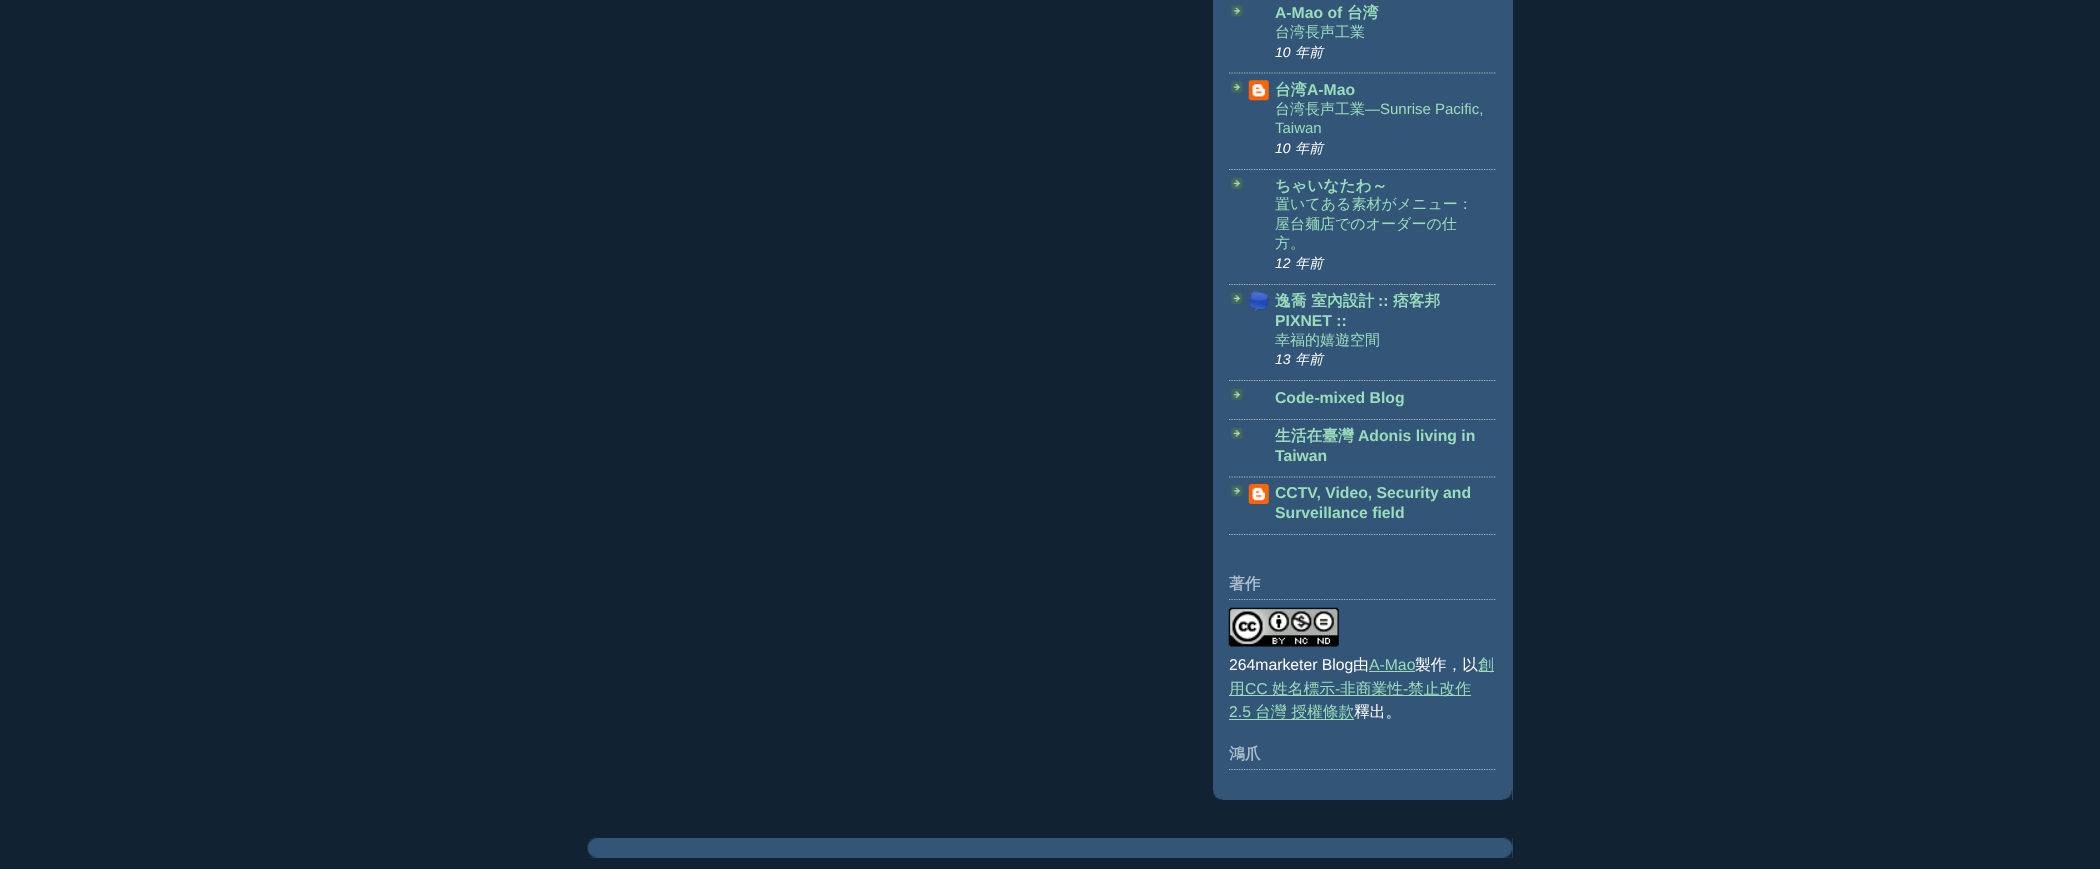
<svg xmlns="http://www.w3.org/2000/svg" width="2100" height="869">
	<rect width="100%" height="100%" fill="#112233" />
	<rect x="1213" y="0" width="300" height="800" fill="#335577" />
	<image x="1213" y="790" width="300" height="10" href="assets/img1.png" />
	<image x="1231" y="5" width="12" height="12" href="assets/img2.png" />
	<path d="M1229 73H1496" fill="none" stroke="#BBBBBB" stroke-width="1.2" stroke-dasharray="1.25 1.25" />
	<text x="1275" y="18" font-family="Liberation Sans" font-size="15.75" font-weight="700" fill="#99DDBB">A-Mao of</text>
	<text x="1347" y="18" font-family="WenQuanYi Zen Hei" font-size="15.75" font-weight="700" fill="#99DDBB">台湾</text>
	<text x="1275" y="37" font-family="WenQuanYi Zen Hei" font-size="15" font-weight="500" fill="#99DDBB">台湾長声工業</text>
	<text x="1275" y="57" font-family="Liberation Sans" font-size="14" font-style="italic" fill="#FFFFFF">10</text>
	<text x="1295" y="57" font-family="WenQuanYi Zen Hei" font-size="14" font-weight="500" font-style="italic" fill="#FFFFFF">年前</text>
	<image x="1231" y="81" width="12" height="12" href="assets/img3.png" />
	<path d="M1229 169.5H1496" fill="none" stroke="#BBBBBB" stroke-width="1.2" stroke-dasharray="1.25 1.25" />
	<image x="1248" y="80" width="21" height="21" href="assets/img4.png" />
	<text x="1275" y="95" font-family="WenQuanYi Zen Hei" font-size="15.75" font-weight="700" fill="#99DDBB">台湾</text>
	<text x="1307" y="95" font-family="Liberation Sans" font-size="15.75" font-weight="700" fill="#99DDBB">A-Mao</text>
	<text x="1275" y="114" font-family="WenQuanYi Zen Hei" font-size="15" font-weight="500" fill="#99DDBB">台湾長声工業</text>
	<g font-family="Liberation Sans" font-size="15" fill="#99DDBB">
		<text x="1365" y="114">—Sunrise Pacific,</text>
		<text x="1275" y="133">Taiwan</text>
	</g>
	<text x="1275" y="153" font-family="Liberation Sans" font-size="14" font-style="italic" fill="#FFFFFF">10</text>
	<text x="1295" y="153" font-family="WenQuanYi Zen Hei" font-size="14" font-weight="500" font-style="italic" fill="#FFFFFF">年前</text>
	<image x="1231" y="177" width="12" height="12" href="assets/img5.png" />
	<path d="M1229 284.5H1496" fill="none" stroke="#BBBBBB" stroke-width="1.2" stroke-dasharray="1.25 1.25" />
	<text x="1275" y="191" font-family="WenQuanYi Zen Hei" font-size="15.75" font-weight="700" fill="#99DDBB">ちゃいなたわ～</text>
	<g font-family="WenQuanYi Zen Hei" font-size="15" font-weight="500" fill="#99DDBB">
		<text x="1275" y="209">置いてある素材がメニュー：</text>
		<text x="1275" y="229">屋台麺店でのオーダーの仕</text>
		<text x="1275" y="248">方。</text>
	</g>
	<text x="1275" y="268" font-family="Liberation Sans" font-size="14" font-style="italic" fill="#FFFFFF">12</text>
	<text x="1295" y="268" font-family="WenQuanYi Zen Hei" font-size="14" font-weight="500" font-style="italic" fill="#FFFFFF">年前</text>
	<image x="1231" y="292" width="12" height="12" href="assets/img5.png" />
	<path d="M1229 380.5H1496" fill="none" stroke="#BBBBBB" stroke-width="1.2" stroke-dasharray="1.25 1.25" />
	<image x="1249" y="291" width="20" height="21" href="assets/img6.png" />
	<text x="1275" y="306" font-family="WenQuanYi Zen Hei" font-size="15.75" font-weight="700" fill="#99DDBB">逸喬 室內設計</text>
	<text x="1378" y="306" font-family="Liberation Sans" font-size="15.75" font-weight="700" fill="#99DDBB">::</text>
	<text x="1393" y="306" font-family="WenQuanYi Zen Hei" font-size="15.75" font-weight="700" fill="#99DDBB">痞客邦</text>
	<text x="1275" y="326" font-family="Liberation Sans" font-size="15.75" font-weight="700" fill="#99DDBB">PIXNET ::</text>
	<text x="1275" y="345" font-family="WenQuanYi Zen Hei" font-size="15" font-weight="500" fill="#99DDBB">幸福的嬉遊空間</text>
	<text x="1275" y="364" font-family="Liberation Sans" font-size="14" font-style="italic" fill="#FFFFFF">13</text>
	<text x="1295" y="364" font-family="WenQuanYi Zen Hei" font-size="14" font-weight="500" font-style="italic" fill="#FFFFFF">年前</text>
	<image x="1231" y="389" width="12" height="12" href="assets/img7.png" />
	<path d="M1229 419.5H1496" fill="none" stroke="#BBBBBB" stroke-width="1.2" stroke-dasharray="1.25 1.25" />
	<text x="1275" y="403" font-family="Liberation Sans" font-size="15.75" font-weight="700" fill="#99DDBB">Code-mixed Blog</text>
	<image x="1231" y="427" width="12" height="12" href="assets/img5.png" />
	<path d="M1229 477H1496" fill="none" stroke="#BBBBBB" stroke-width="1.2" stroke-dasharray="1.25 1.25" />
	<text x="1275" y="441" font-family="WenQuanYi Zen Hei" font-size="15.75" font-weight="700" fill="#99DDBB">生活在臺灣</text>
	<g font-family="Liberation Sans" font-size="15.75" font-weight="700" fill="#99DDBB">
		<text x="1358" y="441">Adonis living in</text>
		<text x="1275" y="461">Taiwan</text>
	</g>
	<image x="1231" y="485" width="12" height="12" href="assets/img2.png" />
	<path d="M1229 534.5H1496" fill="none" stroke="#BBBBBB" stroke-width="1.2" stroke-dasharray="1.25 1.25" />
	<image x="1248" y="484" width="21" height="20" href="assets/img8.png" />
	<g font-family="Liberation Sans" font-size="15.75" font-weight="700" fill="#99DDBB">
		<text x="1275" y="498">CCTV, Video, Security and</text>
		<text x="1275" y="518">Surveillance field</text>
	</g>
	<path d="M1229 599.5H1496" fill="none" stroke="#AABBCC" stroke-width="1.2" stroke-dasharray="1.25 1.25" />
	<text x="1229" y="589" font-family="WenQuanYi Zen Hei" font-size="15.75" font-weight="700" fill="#AABBCC">著作</text>
	<image x="1228" y="607" width="111" height="40" href="assets/img9.png" />
	<text x="1229" y="670" font-family="Liberation Sans" font-size="15.75" fill="#FFFFFF">264marketer Blog</text>
	<text x="1353" y="670" font-family="WenQuanYi Zen Hei" font-size="15.75" font-weight="500" fill="#FFFFFF">由</text>
	<text x="1369" y="670" font-family="Liberation Sans" font-size="15.75" fill="#99DDBB">A-Mao</text>
	<rect x="1369" y="671" width="46" height="1" fill="#99DDBB" />
	<text x="1415" y="670" font-family="WenQuanYi Zen Hei" font-size="15.75" font-weight="500" fill="#FFFFFF">製作，以</text>
	<rect x="1479" y="671" width="15" height="1" fill="#99DDBB" />
	<text x="1478" y="670" font-family="WenQuanYi Zen Hei" font-size="15.75" font-weight="500" fill="#99DDBB">創</text>
	<rect x="1229" y="695" width="242" height="1" fill="#99DDBB" />
	<text x="1229" y="694" font-family="WenQuanYi Zen Hei" font-size="15.75" font-weight="500" fill="#99DDBB">用</text>
	<text x="1245" y="694" font-family="Liberation Sans" font-size="15.75" fill="#99DDBB">CC</text>
	<text x="1272" y="694" font-family="WenQuanYi Zen Hei" font-size="15.75" font-weight="500" fill="#99DDBB">姓名標示</text>
	<text x="1335" y="694" font-family="Liberation Sans" font-size="15.75" fill="#99DDBB">-</text>
	<text x="1340" y="694" font-family="WenQuanYi Zen Hei" font-size="15.75" font-weight="500" fill="#99DDBB">非商業性</text>
	<text x="1403" y="694" font-family="Liberation Sans" font-size="15.75" fill="#99DDBB">-</text>
	<text x="1408" y="694" font-family="WenQuanYi Zen Hei" font-size="15.75" font-weight="500" fill="#99DDBB">禁止改作</text>
	<text x="1229" y="717" font-family="Liberation Sans" font-size="15.75" fill="#99DDBB">2.5</text>
	<rect x="1229" y="719" width="125" height="1" fill="#99DDBB" />
	<text x="1255" y="717" font-family="WenQuanYi Zen Hei" font-size="15.75" font-weight="500" fill="#99DDBB">台灣 授權條款</text>
	<text x="1354" y="717" font-family="WenQuanYi Zen Hei" font-size="15.75" font-weight="500" fill="#FFFFFF">釋出。</text>
	<path d="M1229 769.5H1496" fill="none" stroke="#AABBCC" stroke-width="1.2" stroke-dasharray="1.25 1.25" />
	<text x="1229" y="759" font-family="WenQuanYi Zen Hei" font-size="15.75" font-weight="700" fill="#AABBCC">鴻爪</text>
	<rect x="588" y="838" width="925" height="20" fill="#335577" />
	<image x="587" y="837" width="926" height="11" href="assets/img10.png" />
	<image x="587" y="847" width="926" height="11" href="assets/img11.png" />
</svg>
